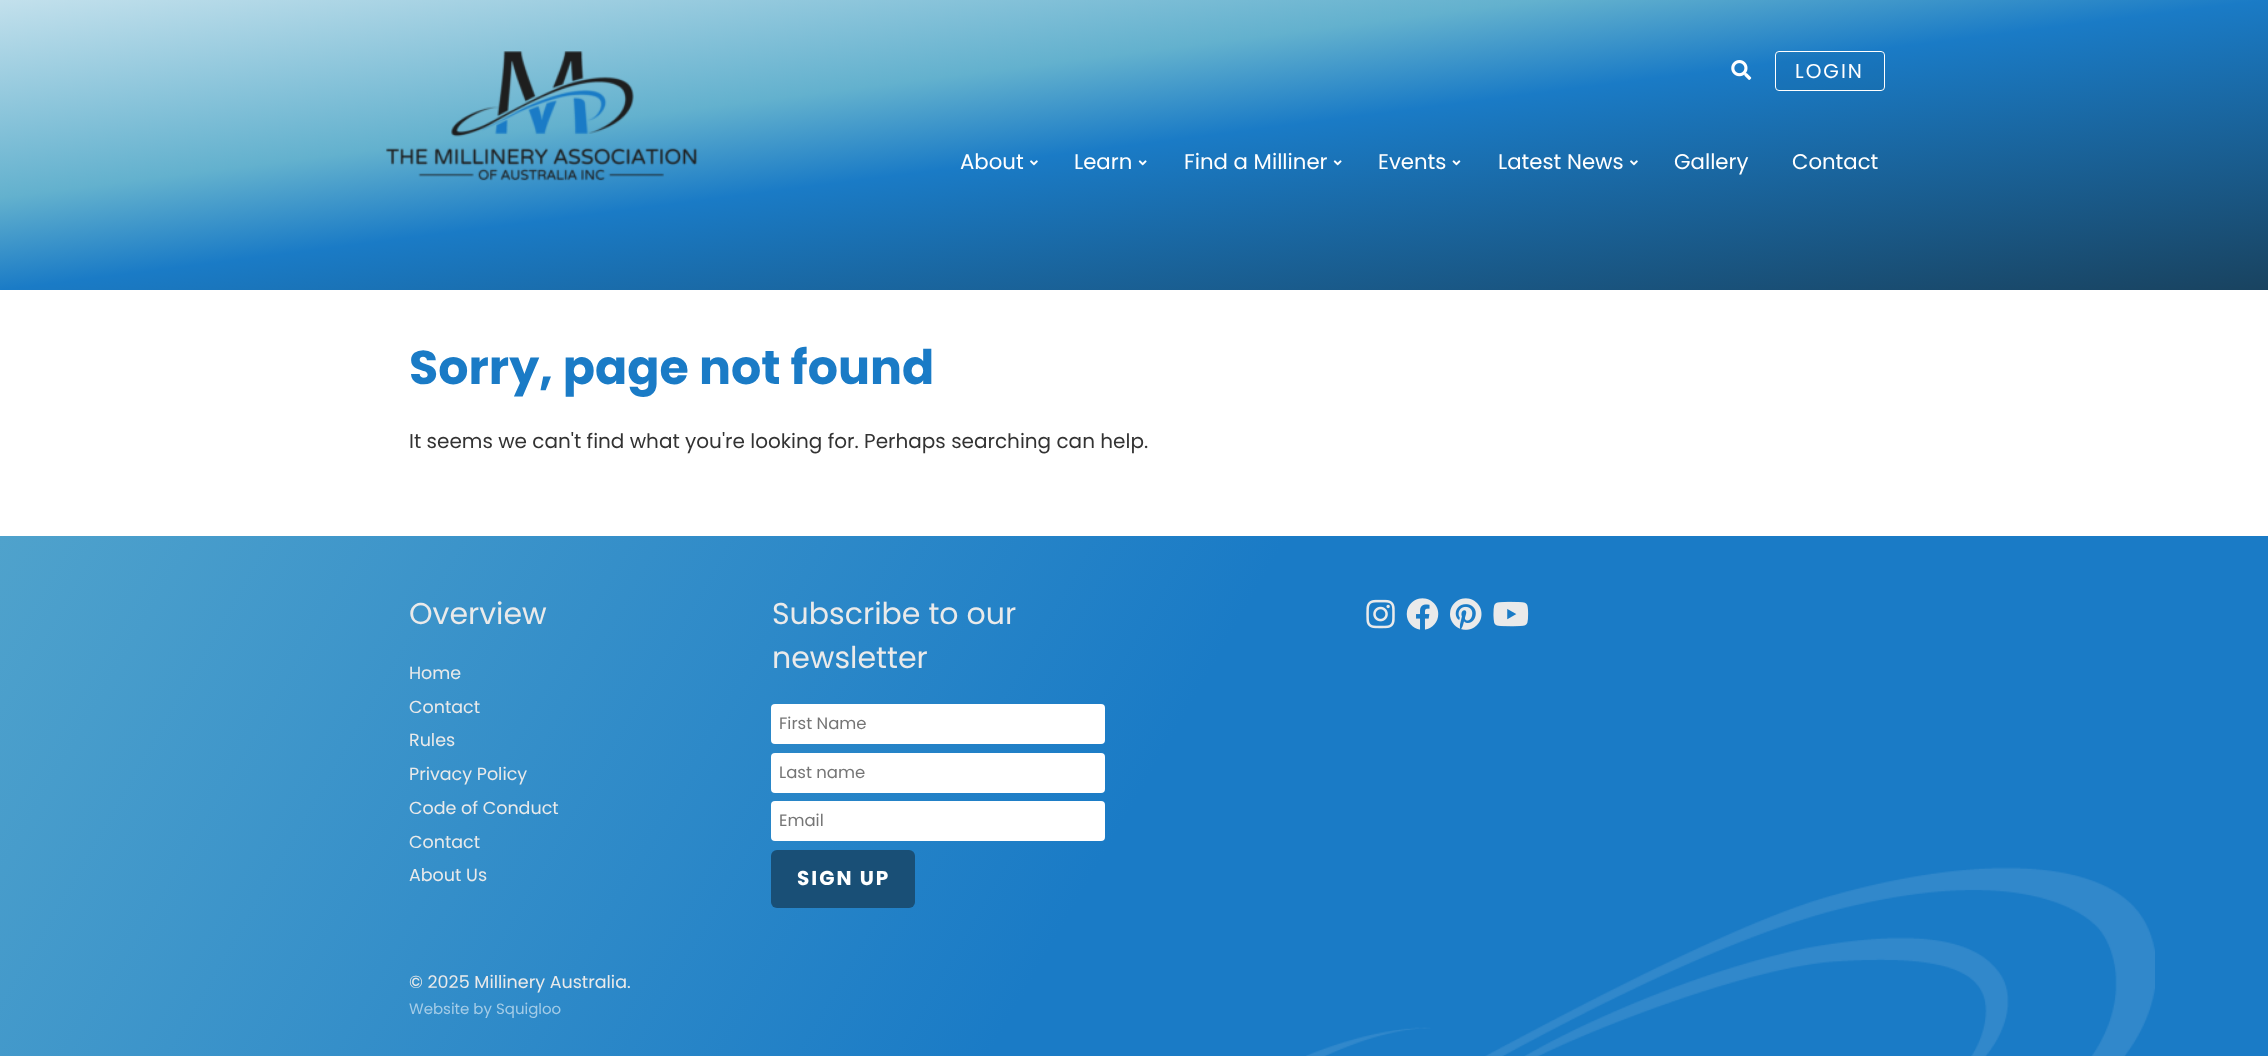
<svg xmlns="http://www.w3.org/2000/svg" width="2268" height="1056">
	<defs>
		<linearGradient id="g1" gradientUnits="userSpaceOnUse" x1="1098" y1="-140" x2="1171" y2="430"><stop offset="0" stop-color="#C2E0EC" /><stop offset="0.34" stop-color="#63B1CE" /><stop offset="0.5" stop-color="#1A7BC6" /><stop offset="1" stop-color="#194360" /></linearGradient>
		<linearGradient id="g2" gradientUnits="userSpaceOnUse" x1="168" y1="246" x2="2101" y2="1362"><stop offset="0" stop-color="#C2E0EC" /><stop offset="0" stop-color="#4FA2CC" /><stop offset="0.5" stop-color="#1A7BC6" /><stop offset="1" stop-color="#1A7BC6" /></linearGradient>
	</defs>
	<rect width="100%" height="100%" fill="#FFFFFF" />
	<rect x="0" y="0" width="2268" height="290" fill="url(#g1)" />
	<image x="385" y="51" width="313" height="130" href="assets/img1.png" />
	<image x="1731" y="60" width="21" height="20" href="assets/img2.png" />
	<rect x="1775" y="51" width="110" height="40" fill="#091F36" fill-opacity="0.05" />
	<rect x="1775.5" y="51.5" width="109" height="39" rx="3.5" fill="none" stroke="#FFFFFF" />
	<text x="1795" y="78" font-family="Poppins" font-size="20" letter-spacing="2" fill="#FFFFFF">LOGIN</text>
	<text x="960" y="169" font-family="Poppins" font-size="21.25" fill="#FFFFFF">About</text>
	<image x="1030" y="160" width="8" height="6" href="assets/img3.png" />
	<text x="1074" y="169" font-family="Poppins" font-size="21.25" fill="#FFFFFF">Learn</text>
	<image x="1138" y="160" width="9" height="6" href="assets/img4.png" />
	<text x="1184" y="169" font-family="Poppins" font-size="21.25" fill="#FFFFFF">Find a Milliner</text>
	<image x="1333" y="160" width="9" height="6" href="assets/img5.png" />
	<text x="1378" y="169" font-family="Poppins" font-size="21.25" fill="#FFFFFF">Events</text>
	<image x="1452" y="160" width="9" height="6" href="assets/img6.png" />
	<text x="1498" y="169" font-family="Poppins" font-size="21.25" fill="#FFFFFF">Latest News</text>
	<image x="1630" y="160" width="8" height="6" href="assets/img7.png" />
	<g font-family="Poppins" font-size="21.25" fill="#FFFFFF">
		<text x="1674" y="169">Gallery</text>
		<text x="1792" y="169">Contact</text>
	</g>
	<text x="409" y="384" font-family="Poppins" font-size="47.5" font-weight="700" fill="#1A7BC6">Sorry, page not found</text>
	<text x="409" y="448" font-family="Poppins" font-size="20" fill="#333333">It seems we can't find what you're looking for. Perhaps searching can help.</text>
	<rect x="0" y="536" width="2268" height="520" fill="url(#g2)" />
	<text x="409" y="624" font-family="Poppins" font-size="30" fill="#EAEAEA">Overview</text>
	<g font-family="Poppins" font-size="17.5" fill="#EAEAEA">
		<text x="409" y="679">Home</text>
		<text x="409" y="713">Contact</text>
		<text x="409" y="746">Rules</text>
		<text x="409" y="780">Privacy Policy</text>
		<text x="409" y="814">Code of Conduct</text>
		<text x="409" y="848">Contact</text>
		<text x="409" y="881">About Us</text>
	</g>
	<g font-family="Poppins" font-size="30" fill="#EAEAEA">
		<text x="772" y="624">Subscribe to our</text>
		<text x="772" y="668">newsletter</text>
	</g>
	<rect x="771" y="704" width="334" height="40" rx="4" fill="#FFFFFF" />
	<text x="779" y="729" font-family="Poppins" font-size="16.5" fill="#757575">First Name</text>
	<rect x="771" y="753" width="334" height="40" rx="4" fill="#FFFFFF" />
	<text x="779" y="778" font-family="Poppins" font-size="16.5" fill="#757575">Last name</text>
	<rect x="771" y="801" width="334" height="40" rx="4" fill="#FFFFFF" />
	<text x="779" y="826" font-family="Poppins" font-size="16.5" fill="#757575">Email</text>
	<rect x="771" y="850" width="144" height="58" rx="6" fill="#194F76" />
	<text x="797" y="885" font-family="Poppins" font-size="20" font-weight="700" letter-spacing="2" fill="#FFFFFF">SIGN UP</text>
	<image x="1366" y="599" width="29" height="30" href="assets/img8.png" />
	<image x="1406" y="598" width="33" height="32" href="assets/img9.png" />
	<image x="1450" y="598" width="32" height="32" href="assets/img10.png" />
	<image x="1493" y="601" width="36" height="26" href="assets/img11.png" />
	<text x="409" y="988" font-family="Poppins" font-size="17.5" fill="#EAEAEA">© 2025 Millinery Australia.</text>
	<text x="409" y="1014" font-family="Poppins" font-size="15" fill="#A4CCE7">Website by Squigloo</text>
	<image x="1306" y="867" width="849" height="189" href="assets/img12.png" />
</svg>
